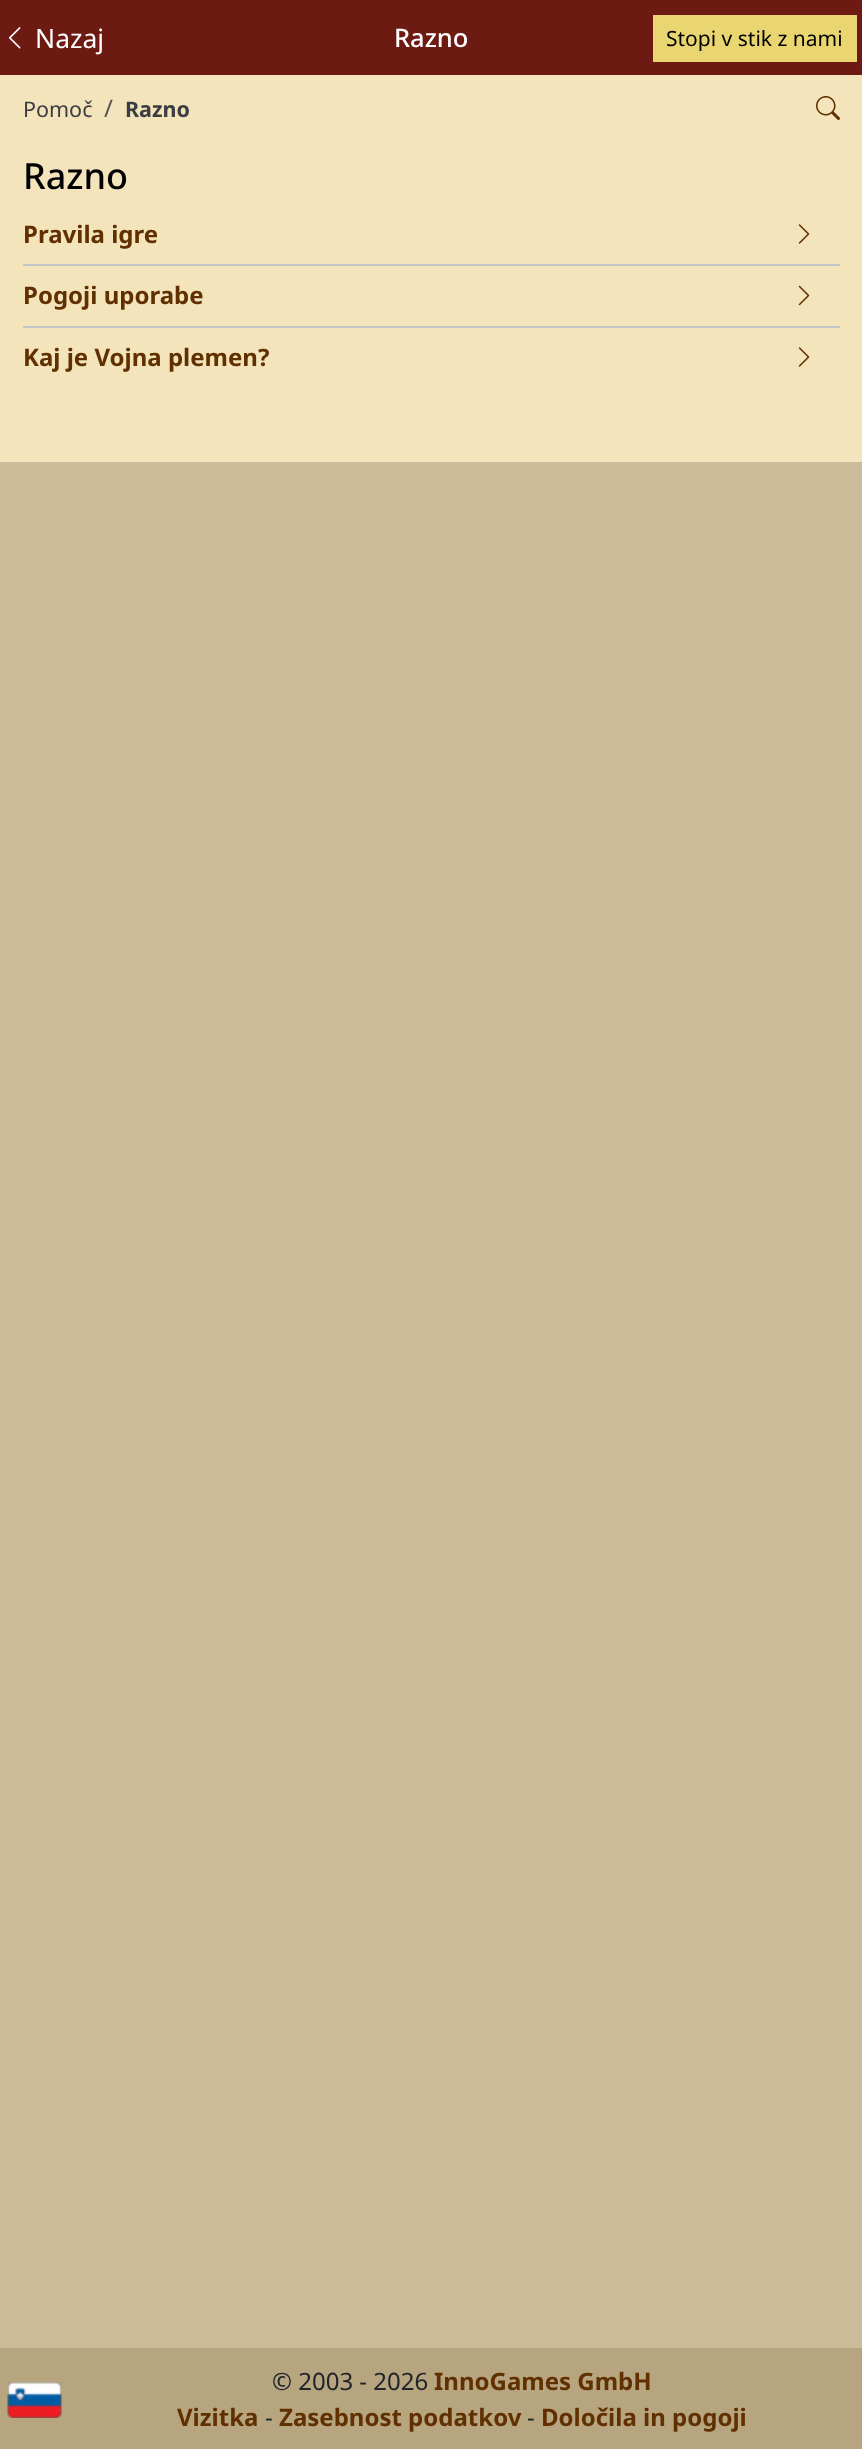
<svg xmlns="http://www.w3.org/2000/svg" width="862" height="2449">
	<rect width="100%" height="100%" fill="#CCBC9A" />
	<rect x="0" y="75" width="862" height="387" fill="#F4E4BC" />
	<rect x="0" y="0" width="862" height="75" fill="#6C1A12" />
	<image x="8" y="27" width="13" height="22" href="assets/img1.png" />
	<text x="35" y="48" font-family="Noto Sans" font-size="26.5" fill="#FFFFFF">Nazaj</text>
	<text x="394" y="47" font-family="Noto Sans" font-size="25.5" font-weight="500" fill="#FFFFFF">Razno</text>
	<rect x="653" y="15" width="204" height="47" fill="#EAD670" />
	<text x="666" y="46" font-family="Noto Sans" font-size="21" fill="#000000">Stopi v stik z nami</text>
	<text x="23" y="117" font-family="Noto Sans" font-size="21.5" fill="#3A3D41">Pomoč</text>
	<text x="104" y="117" font-family="Noto Sans" font-size="24" fill="#56554E">/</text>
	<text x="125" y="117" font-family="Noto Sans" font-size="21.5" font-weight="700" fill="#3A3D41">Razno</text>
	<image x="816" y="96" width="24" height="24" href="assets/img2.png" />
	<text x="23" y="189" font-family="Noto Sans" font-size="36" font-weight="500" fill="#000000">Razno</text>
	<rect x="23" y="264" width="817" height="2" fill="#C0C4C7" />
	<text x="23" y="243" font-family="Noto Sans" font-size="24" font-weight="700" fill="#603000">Pravila igre</text>
	<image x="798" y="224" width="12" height="20" href="assets/img3.png" />
	<rect x="23" y="326" width="817" height="2" fill="#C0C4C7" />
	<text x="23" y="304" font-family="Noto Sans" font-size="24" font-weight="700" fill="#603000">Pogoji uporabe</text>
	<image x="798" y="285" width="12" height="21" href="assets/img4.png" />
	<text x="23" y="366" font-family="Noto Sans" font-size="24" font-weight="700" fill="#603000">Kaj je Vojna plemen?</text>
	<image x="798" y="347" width="12" height="20" href="assets/img3.png" />
	<rect x="0" y="2348" width="862" height="101" fill="#B7A580" />
	<image x="7" y="2382" width="55" height="36" href="assets/img5.png" />
	<text x="272" y="2390" font-family="Noto Sans" font-size="24" fill="#212529">© 2003 - 2026</text>
	<g font-family="Noto Sans" font-size="24" font-weight="700" fill="#603000">
		<text x="434" y="2390">InnoGames GmbH</text>
		<text x="177" y="2426">Vizitka</text>
	</g>
	<text x="265" y="2426" font-family="Noto Sans" font-size="24" fill="#212529">-</text>
	<text x="279" y="2426" font-family="Noto Sans" font-size="24" font-weight="700" fill="#603000">Zasebnost podatkov</text>
	<text x="527" y="2426" font-family="Noto Sans" font-size="24" fill="#212529">-</text>
	<text x="541" y="2426" font-family="Noto Sans" font-size="24" font-weight="700" fill="#603000">Določila in pogoji</text>
</svg>
